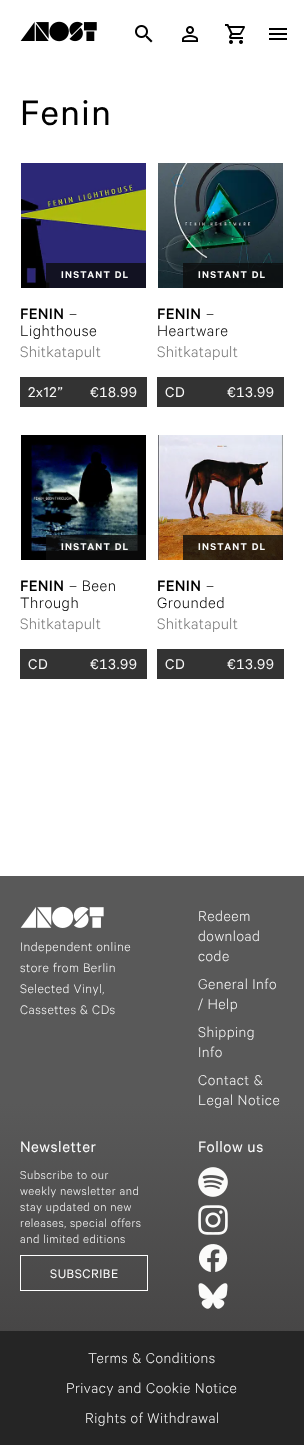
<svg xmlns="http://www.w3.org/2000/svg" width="304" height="1445">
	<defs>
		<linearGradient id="g1" gradientUnits="userSpaceOnUse" x1="152" y1="1331" x2="152" y2="876"><stop offset="0" stop-color="#474646" /><stop offset="0.5" stop-color="#595959" /></linearGradient>
	</defs>
	<rect width="100%" height="100%" fill="#FFFFFF" />
	<image x="20" y="21" width="77" height="21" href="assets/img1.png" />
	<image x="135" y="25" width="18" height="18" href="assets/img2.png" />
	<image x="182" y="26" width="16" height="16" href="assets/img3.png" />
	<image x="225" y="24" width="20" height="20" href="assets/img4.png" />
	<image x="269" y="28" width="18" height="12" href="assets/img5.png" />
	<text x="20" y="125" font-family="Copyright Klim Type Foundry" font-size="40" letter-spacing="1.5" fill="#000000">Fenin</text>
	<image x="21" y="163" width="125" height="125" href="assets/img6.png" />
	<rect x="46" y="263" width="100" height="25" fill="#0D0D0D" fill-opacity="0.8" />
	<text x="61" y="278" font-family="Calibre" font-size="11" font-weight="600" letter-spacing="1.25" fill="#FAFAFA">INSTANT DL</text>
	<text x="20" y="319" font-family="Calibre" font-size="17" font-weight="500" letter-spacing="0.3" fill="#000000">FENIN</text>
	<g font-family="Calibre" font-size="17" font-weight="300" letter-spacing="0.5" fill="#000000">
		<text x="69" y="319">–</text>
		<text x="20" y="336">Lighthouse</text>
	</g>
	<text x="20" y="357" font-family="Calibre" font-size="17" font-weight="300" letter-spacing="0.3" fill="#757575">Shitkatapult</text>
	<rect x="20" y="377" width="127" height="30" fill="#333333" />
	<g font-family="Copyright Klim Type Foundry" font-size="16" letter-spacing="0.5" fill="#FAFAFA">
		<text x="28" y="397">2x12”</text>
		<text x="90" y="397">€</text>
	</g>
	<text x="99" y="397" font-family="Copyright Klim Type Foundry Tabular" font-size="16" letter-spacing="0.5" fill="#FAFAFA">18.99</text>
	<image x="158" y="163" width="125" height="125" href="assets/img7.png" />
	<rect x="183" y="263" width="100" height="25" fill="#0D0D0D" fill-opacity="0.8" />
	<text x="198" y="278" font-family="Calibre" font-size="11" font-weight="600" letter-spacing="1.25" fill="#FAFAFA">INSTANT DL</text>
	<text x="157" y="319" font-family="Calibre" font-size="17" font-weight="500" letter-spacing="0.3" fill="#000000">FENIN</text>
	<g font-family="Calibre" font-size="17" font-weight="300" letter-spacing="0.5" fill="#000000">
		<text x="206" y="319">–</text>
		<text x="157" y="336">Heartware</text>
	</g>
	<text x="157" y="357" font-family="Calibre" font-size="17" font-weight="300" letter-spacing="0.3" fill="#757575">Shitkatapult</text>
	<rect x="157" y="377" width="127" height="30" fill="#333333" />
	<g font-family="Copyright Klim Type Foundry" font-size="16" letter-spacing="0.5" fill="#FAFAFA">
		<text x="165" y="397">CD</text>
		<text x="227" y="397">€</text>
	</g>
	<text x="236" y="397" font-family="Copyright Klim Type Foundry Tabular" font-size="16" letter-spacing="0.5" fill="#FAFAFA">13.99</text>
	<image x="21" y="435" width="125" height="125" href="assets/img8.png" />
	<rect x="46" y="535" width="100" height="25" fill="#0D0D0D" fill-opacity="0.8" />
	<text x="61" y="550" font-family="Calibre" font-size="11" font-weight="600" letter-spacing="1.25" fill="#FAFAFA">INSTANT DL</text>
	<text x="20" y="591" font-family="Calibre" font-size="17" font-weight="500" letter-spacing="0.3" fill="#000000">FENIN</text>
	<g font-family="Calibre" font-size="17" font-weight="300" letter-spacing="0.5" fill="#000000">
		<text x="69" y="591">– Been</text>
		<text x="20" y="608">Through</text>
	</g>
	<text x="20" y="629" font-family="Calibre" font-size="17" font-weight="300" letter-spacing="0.3" fill="#757575">Shitkatapult</text>
	<rect x="20" y="649" width="127" height="30" fill="#333333" />
	<g font-family="Copyright Klim Type Foundry" font-size="16" letter-spacing="0.5" fill="#FAFAFA">
		<text x="28" y="669">CD</text>
		<text x="90" y="669">€</text>
	</g>
	<text x="99" y="669" font-family="Copyright Klim Type Foundry Tabular" font-size="16" letter-spacing="0.5" fill="#FAFAFA">13.99</text>
	<image x="158" y="435" width="125" height="125" href="assets/img9.png" />
	<rect x="183" y="535" width="100" height="25" fill="#0D0D0D" fill-opacity="0.8" />
	<text x="198" y="550" font-family="Calibre" font-size="11" font-weight="600" letter-spacing="1.25" fill="#FAFAFA">INSTANT DL</text>
	<text x="157" y="591" font-family="Calibre" font-size="17" font-weight="500" letter-spacing="0.3" fill="#000000">FENIN</text>
	<g font-family="Calibre" font-size="17" font-weight="300" letter-spacing="0.5" fill="#000000">
		<text x="206" y="591">–</text>
		<text x="157" y="608">Grounded</text>
	</g>
	<text x="157" y="629" font-family="Calibre" font-size="17" font-weight="300" letter-spacing="0.3" fill="#757575">Shitkatapult</text>
	<rect x="157" y="649" width="127" height="30" fill="#333333" />
	<g font-family="Copyright Klim Type Foundry" font-size="16" letter-spacing="0.5" fill="#FAFAFA">
		<text x="165" y="669">CD</text>
		<text x="227" y="669">€</text>
	</g>
	<text x="236" y="669" font-family="Copyright Klim Type Foundry Tabular" font-size="16" letter-spacing="0.5" fill="#FAFAFA">13.99</text>
	<rect x="0" y="876" width="304" height="455" fill="url(#g1)" />
	<image x="20" y="906" width="84" height="22" href="assets/img10.png" />
	<g font-family="Calibre" font-size="14" font-weight="300" letter-spacing="0.5" fill="#FAFAFA">
		<text x="20" y="951">Independent online</text>
		<text x="20" y="972">store from Berlin</text>
		<text x="20" y="993">Selected Vinyl,</text>
		<text x="20" y="1014">Cassettes &amp; CDs</text>
	</g>
	<g font-family="Calibre" font-size="16" font-weight="300" letter-spacing="0.5" fill="#FAFAFA">
		<text x="198" y="921">Redeem</text>
		<text x="198" y="941">download</text>
		<text x="198" y="961">code</text>
		<text x="198" y="989">General Info</text>
		<text x="198" y="1009">/ Help</text>
		<text x="198" y="1037">Shipping</text>
		<text x="198" y="1057">Info</text>
		<text x="198" y="1085">Contact &amp;</text>
		<text x="198" y="1105">Legal Notice</text>
	</g>
	<text x="20" y="1152" font-family="Copyright Klim Type Foundry" font-size="17" letter-spacing="0.5" fill="#FAFAFA">Newsletter</text>
	<g font-family="Calibre" font-size="13" font-weight="300" letter-spacing="0.5" fill="#FAFAFA">
		<text x="20" y="1179">Subscribe to our</text>
		<text x="20" y="1195">weekly newsletter and</text>
		<text x="20" y="1211">stay updated on new</text>
		<text x="20" y="1227">releases, special offers</text>
		<text x="20" y="1243">and limited editions</text>
	</g>
	<rect x="20.5" y="1255.5" width="127" height="35" fill="none" stroke="#FFFFFF" />
	<text x="50" y="1278" font-family="Copyright Klim Type Foundry" font-size="14" letter-spacing="0.5" fill="#FAFAFA">SUBSCRIBE</text>
	<text x="198" y="1152" font-family="Copyright Klim Type Foundry" font-size="17" letter-spacing="0.5" fill="#FAFAFA">Follow us</text>
	<image x="198" y="1167" width="30" height="30" href="assets/img11.png" />
	<image x="198" y="1205" width="30" height="30" href="assets/img12.png" />
	<image x="199" y="1244" width="29" height="28" href="assets/img13.png" />
	<image x="198" y="1283" width="30" height="26" href="assets/img14.png" />
	<rect x="0" y="1331" width="304" height="114" fill="#252525" />
	<g font-family="Calibre" font-size="16" font-weight="300" letter-spacing="0.5" fill="#FAFAFA">
		<text x="88" y="1363">Terms &amp; Conditions</text>
		<text x="66" y="1393">Privacy and Cookie Notice</text>
		<text x="85" y="1423">Rights of Withdrawal</text>
	</g>
</svg>
